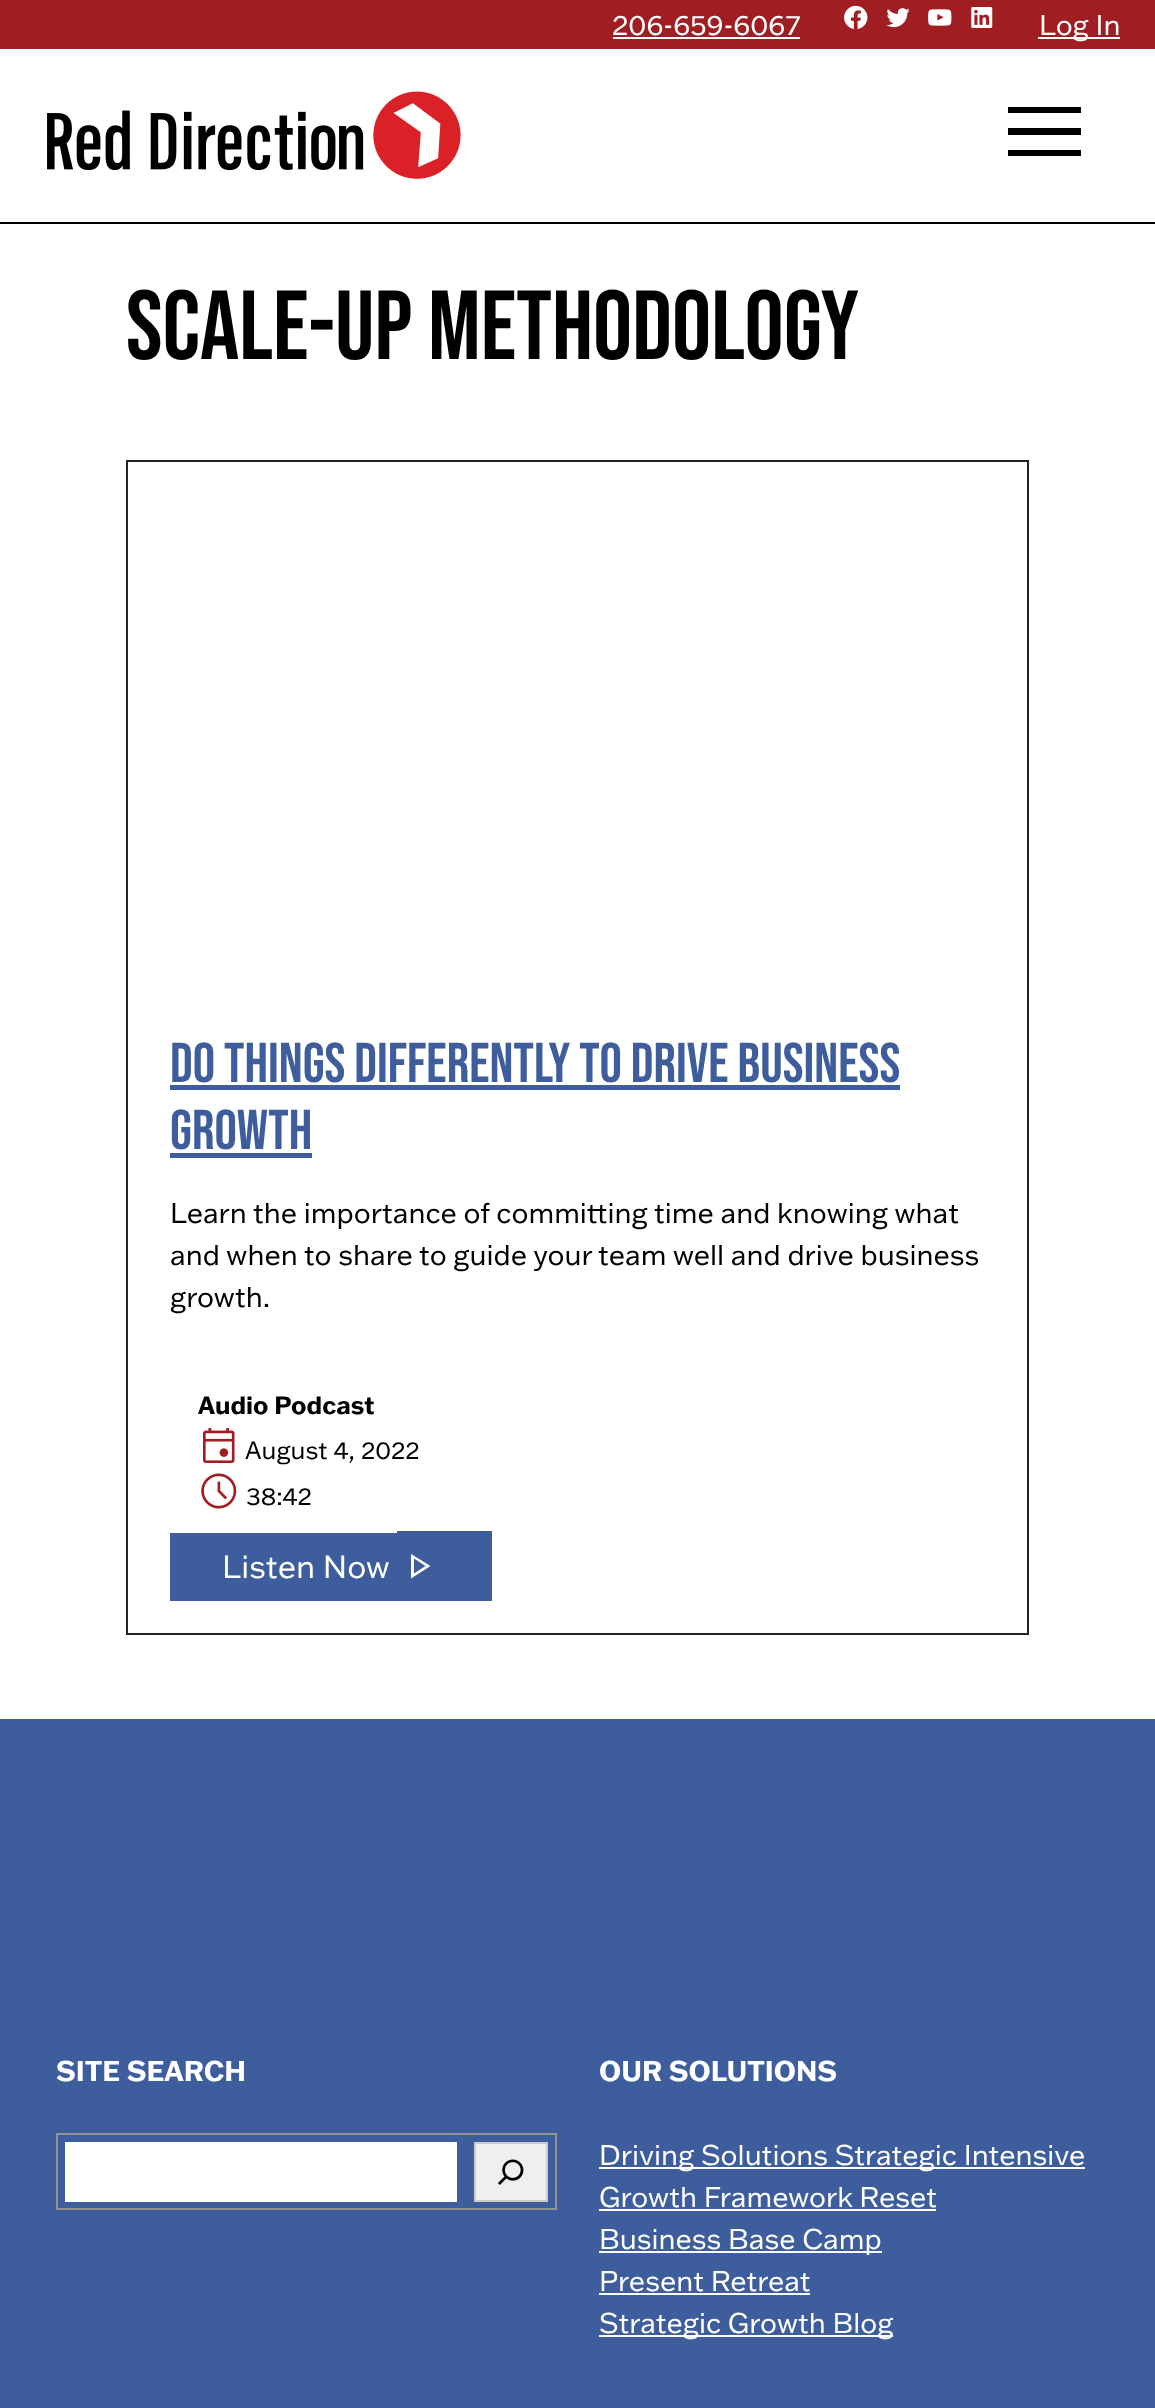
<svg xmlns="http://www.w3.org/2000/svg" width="1155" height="2408">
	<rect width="100%" height="100%" fill="#FFFFFF" />
	<rect x="0" y="0" width="1155" height="49" fill="#A01E21" />
	<text x="612" y="35" font-family="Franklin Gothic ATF" font-size="28" fill="#FFFFFF">206-659-6067</text>
	<rect x="613" y="37" width="187" height="2" fill="#FFFFFF" />
	<image x="844" y="5" width="24" height="24" href="assets/img1.png" />
	<image x="886" y="8" width="24" height="20" href="assets/img2.png" />
	<image x="928" y="9" width="24" height="17" href="assets/img3.png" />
	<image x="971" y="7" width="22" height="21" href="assets/img4.png" />
	<rect x="1038" y="37" width="82" height="2" fill="#FFFFFF" />
	<text x="1039" y="35" font-family="Franklin Gothic ATF" font-size="28" fill="#FFFFFF">Log In</text>
	<rect x="0" y="222" width="1155" height="2" fill="#000000" />
	<image x="47" y="91" width="414" height="88" href="assets/img5.png" />
	<path d="M1008 156V150H1081V156ZM1008 135V128H1081V135ZM1008 113V107H1081V113Z" fill="#000000" />
	<text x="126" y="359" font-family="Bebas Neue" font-size="98" fill="#000000">scale-up methodology</text>
	<rect x="127" y="461" width="901" height="1173" fill="none" stroke="#212529" stroke-width="2" />
	<text x="170" y="1082" font-family="Bebas Neue" font-size="56" fill="#3D5D9D">Do Things Differently to Drive Business</text>
	<rect x="170" y="1085" width="730" height="5" fill="#3D5D9D" />
	<text x="170" y="1149" font-family="Bebas Neue" font-size="56" fill="#3D5D9D">Growth</text>
	<rect x="170" y="1153" width="142" height="5" fill="#3D5D9D" />
	<g font-family="Franklin Gothic ATF" font-size="28" fill="#000000">
		<text x="170" y="1223">Learn the importance of committing time and knowing what</text>
		<text x="170" y="1265">and when to share to guide your team well and drive business</text>
		<text x="170" y="1307">growth.</text>
	</g>
	<text x="198" y="1414" font-family="Franklin Gothic ATF" font-size="24.5" font-weight="700" fill="#000000">Audio Podcast</text>
	<image x="203" y="1428" width="32" height="35" href="assets/img6.png" />
	<text x="245" y="1459" font-family="Franklin Gothic ATF" font-size="24.5" fill="#000000">August 4, 2022</text>
	<image x="201" y="1473" width="36" height="36" href="assets/img7.png" />
	<text x="246" y="1505" font-family="Franklin Gothic ATF" font-size="24.5" fill="#000000">38:42</text>
	<rect x="170" y="1533" width="227" height="68" fill="#3D5D9D" />
	<rect x="397" y="1531" width="95" height="70" fill="#3D5D9D" />
	<text x="222" y="1578" font-family="Franklin Gothic ATF" font-size="31.5" fill="#FFFFFF">Listen Now</text>
	<path d="M411 1578.5V1554L430.5 1566ZM414 1566H414ZM414 1573.5L425.5 1566L414 1558.5Z" fill="#FFFFFF" />
	<rect x="0" y="1719" width="1155" height="689" fill="#3D5D9D" />
	<text x="56" y="2081" font-family="Franklin Gothic ATF" font-size="28" font-weight="700" fill="#FFFFFF">SITE SEARCH</text>
	<rect x="57" y="2134" width="499" height="75" fill="none" stroke="#949494" stroke-width="2" />
	<rect x="65" y="2142" width="392" height="60" fill="#FFFFFF" />
	<rect x="475" y="2143" width="72" height="58" fill="#EFEFEF" stroke="#CCCCCC" stroke-width="2" />
	<image x="498" y="2159" width="26" height="26" href="assets/img8.png" />
	<text x="599" y="2081" font-family="Franklin Gothic ATF" font-size="28" font-weight="700" fill="#FFFFFF">OUR SOLUTIONS</text>
	<rect x="599" y="2167" width="486" height="2" fill="#FFFFFF" />
	<g font-family="Franklin Gothic ATF" font-size="28" fill="#FFFFFF">
		<text x="599" y="2165">Driving Solutions Strategic Intensive</text>
		<text x="599" y="2207">Growth Framework Reset</text>
	</g>
	<rect x="599" y="2209" width="337" height="2" fill="#FFFFFF" />
	<rect x="599" y="2251" width="283" height="2" fill="#FFFFFF" />
	<g font-family="Franklin Gothic ATF" font-size="28" fill="#FFFFFF">
		<text x="599" y="2249">Business Base Camp</text>
		<text x="599" y="2291">Present Retreat</text>
	</g>
	<rect x="599" y="2293" width="211" height="2" fill="#FFFFFF" />
	<rect x="599" y="2335" width="294" height="2" fill="#FFFFFF" />
	<text x="599" y="2333" font-family="Franklin Gothic ATF" font-size="28" fill="#FFFFFF">Strategic Growth Blog</text>
</svg>
